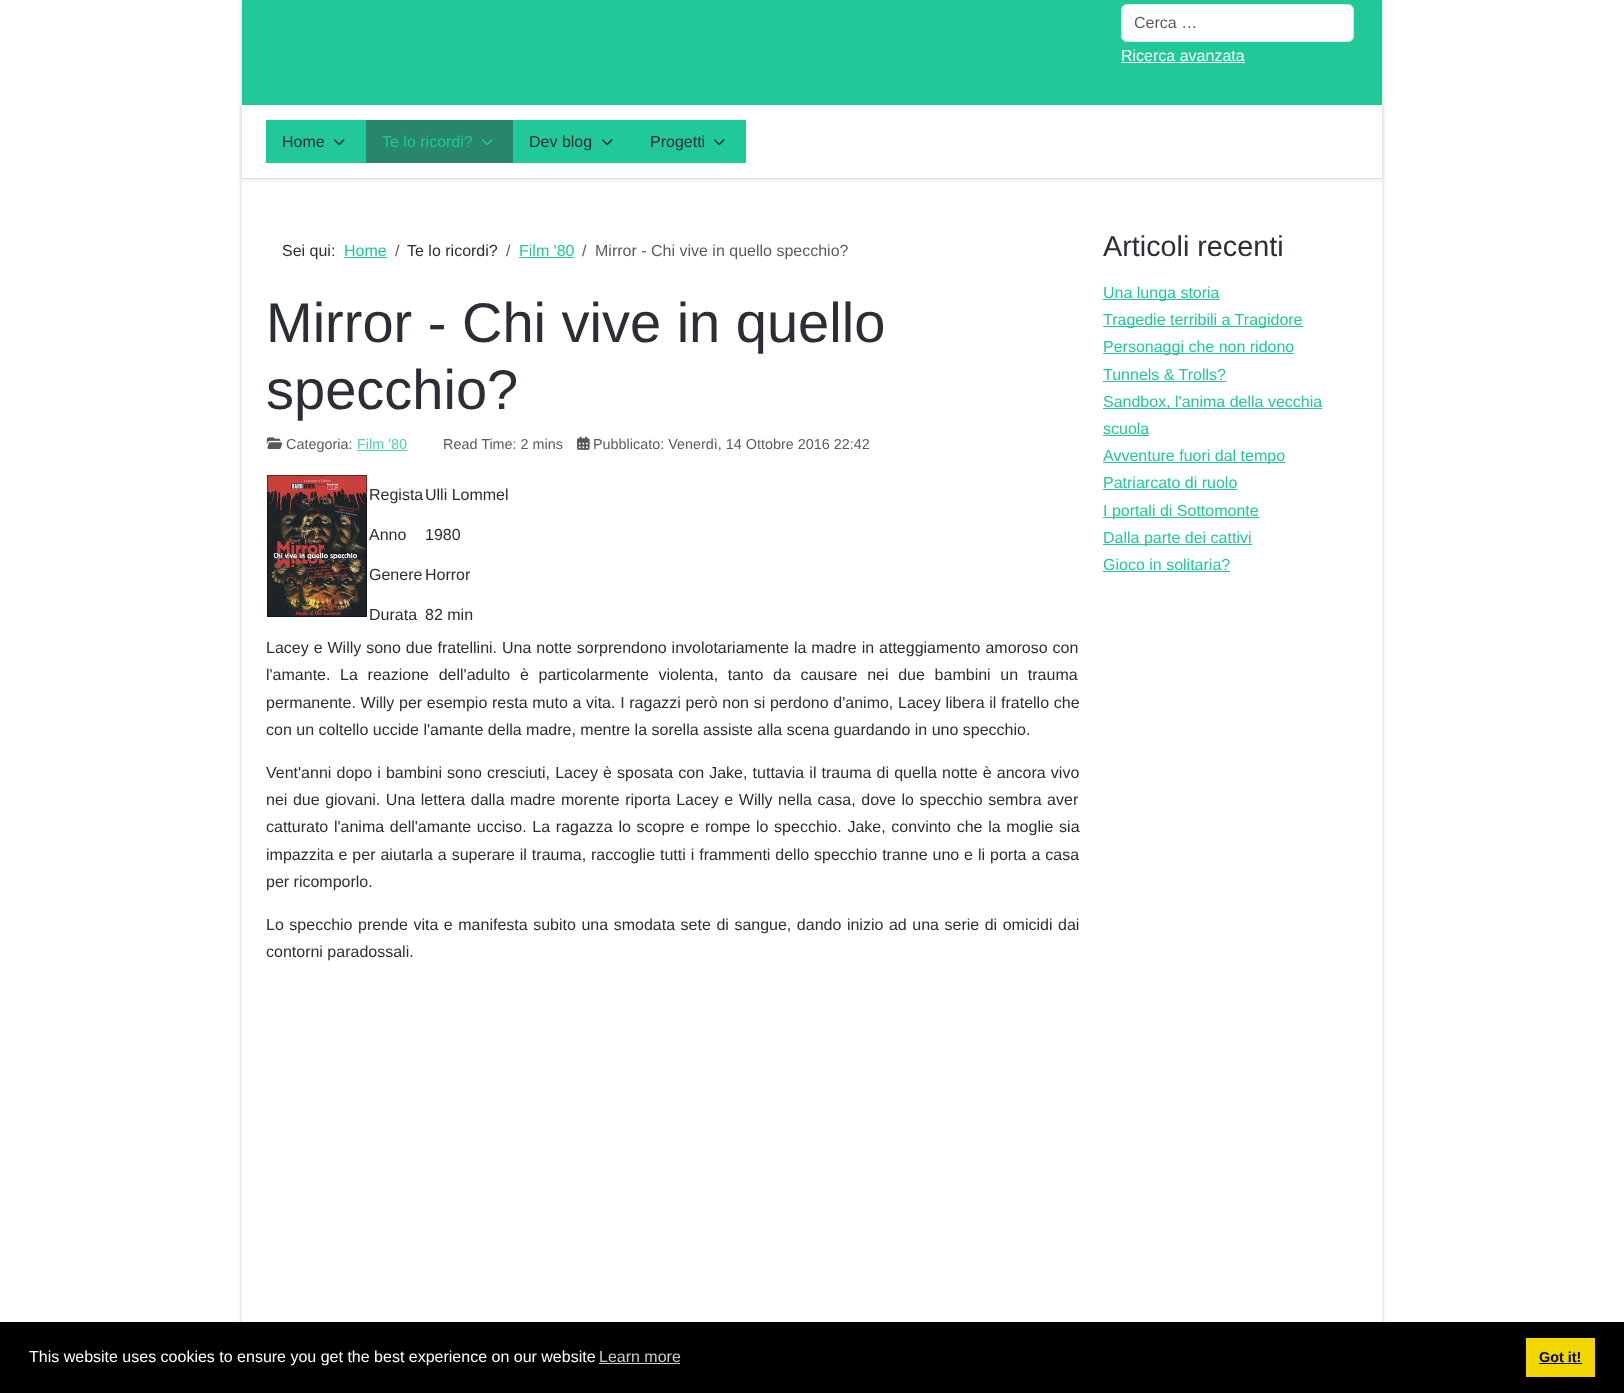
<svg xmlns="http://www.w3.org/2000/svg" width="1624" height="1393">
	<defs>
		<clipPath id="clip1"><path d="M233 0H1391V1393H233ZM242 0H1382V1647H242Z" clip-rule="evenodd" /></clipPath>
		<clipPath id="clip2"><path d="M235 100H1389V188H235ZM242 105H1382V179H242Z" clip-rule="evenodd" /></clipPath>
	</defs>
	<rect width="100%" height="100%" fill="#FFFFFF" />
	<g clip-path="url(#clip1)">
		<rect x="242" y="0" width="1140" height="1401" fill="#000000" fill-opacity="0.2" filter="blur(2.5px)" />
	</g>
	<rect x="242" y="0" width="1140" height="105" fill="#20C997" />
	<rect x="1121.5" y="4.5" width="232" height="37" rx="5.5" fill="#FFFFFF" stroke="#DEE2E6" />
	<text x="1134" y="28" font-family="Liberation Sans" font-size="16" fill="#595C5F">Cerca …</text>
	<text x="1121" y="61" font-family="Liberation Sans" font-size="16" fill="#FFFFFF">Ricerca avanzata</text>
	<rect x="1121" y="62" width="124" height="1" fill="#FFFFFF" />
	<g clip-path="url(#clip2)">
		<rect x="242" y="107" width="1140" height="74" fill="#000000" fill-opacity="0.07" filter="blur(2px)" />
	</g>
	<rect x="242" y="178" width="1140" height="1" fill="#DEE2E6" />
	<rect x="266" y="120" width="100" height="43" fill="#20C997" />
	<text x="282" y="147" font-family="Liberation Sans" font-size="16" fill="#2C2E36">Home</text>
	<image x="334" y="139" width="11" height="7" href="assets/img1.png" />
	<rect x="366" y="120" width="147" height="43" fill="#28866A" />
	<text x="382" y="147" font-family="Liberation Sans" font-size="16" fill="#20C997">Te lo ricordi?</text>
	<image x="482" y="139" width="11" height="7" href="assets/img2.png" />
	<rect x="513" y="120" width="233" height="43" fill="#20C997" />
	<text x="529" y="147" font-family="Liberation Sans" font-size="16" fill="#2C2E36">Dev blog</text>
	<image x="602" y="139" width="11" height="7" href="assets/img1.png" />
	<text x="650" y="147" font-family="Liberation Sans" font-size="16" fill="#2C2E36">Progetti</text>
	<image x="714" y="139" width="11" height="7" href="assets/img1.png" />
	<text x="282" y="256" font-family="Liberation Sans" font-size="16" fill="#2C2E36">Sei qui:</text>
	<text x="344" y="256" font-family="Liberation Sans" font-size="16" fill="#20C997">Home</text>
	<rect x="344" y="257" width="43" height="1" fill="#20C997" />
	<text x="395" y="256" font-family="Liberation Sans" font-size="16" fill="#595C5F">/</text>
	<text x="407" y="256" font-family="Liberation Sans" font-size="16" fill="#2C2E36">Te lo ricordi?</text>
	<text x="506" y="256" font-family="Liberation Sans" font-size="16" fill="#595C5F">/</text>
	<text x="519" y="256" font-family="Liberation Sans" font-size="16" fill="#20C997">Film '80</text>
	<rect x="519" y="257" width="55" height="1" fill="#20C997" />
	<g font-family="Liberation Sans" font-size="16" fill="#595C5F">
		<text x="582" y="256">/</text>
		<text x="595" y="256">Mirror - Chi vive in quello specchio?</text>
	</g>
	<g font-family="Liberation Sans" font-size="56" fill="#2C2E36">
		<text x="266" y="342">Mirror - Chi vive in quello</text>
		<text x="266" y="409">specchio?</text>
	</g>
	<image x="266" y="437" width="17" height="12" href="assets/img3.png" />
	<text x="286" y="449" font-family="Liberation Sans" font-size="14.4" fill="#595C5F">Categoria:</text>
	<text x="357" y="449" font-family="Liberation Sans" font-size="14.4" fill="#4DD4AC">Film '80</text>
	<rect x="357" y="450" width="50" height="1" fill="#4DD4AC" />
	<text x="443" y="449" font-family="Liberation Sans" font-size="14.4" fill="#595C5F">Read Time: 2 mins</text>
	<image x="577" y="436" width="13" height="14" href="assets/img4.png" />
	<text x="593" y="449" font-family="Liberation Sans" font-size="14.4" fill="#595C5F">Pubblicato: Venerdì, 14 Ottobre 2016 22:42</text>
	<image x="267" y="475" width="100" height="142" href="assets/img5.png" />
	<g font-family="Liberation Sans" font-size="16" fill="#2C2E36">
		<text x="369" y="500">Regista</text>
		<text x="425" y="500">Ulli Lommel</text>
		<text x="369" y="540">Anno</text>
		<text x="425" y="540">1980</text>
		<text x="369" y="580">Genere</text>
		<text x="425" y="580">Horror</text>
		<text x="369" y="620">Durata</text>
		<text x="425" y="620">82 min</text>
		<text x="266" y="653" word-spacing="0.5">Lacey e Willy sono due fratellini. Una notte sorprendono involotariamente la madre in atteggiamento amoroso con</text>
		<text x="266" y="680" word-spacing="5.25">l'amante. La reazione dell'adulto è particolarmente violenta, tanto da causare nei due bambini un trauma</text>
		<text x="266" y="708" word-spacing="0.25">permanente. Willy per esempio resta muto a vita. I ragazzi però non si perdono d'animo, Lacey libera il fratello che</text>
		<text x="266" y="735">con un coltello uccide l'amante della madre, mentre la sorella assiste alla scena guardando in uno specchio.</text>
		<text x="266" y="778" word-spacing="0.7">Vent'anni dopo i bambini sono cresciuti, Lacey è sposata con Jake, tuttavia il trauma di quella notte è ancora vivo</text>
		<text x="266" y="805" word-spacing="1.1">nei due giovani. Una lettera dalla madre morente riporta Lacey e Willy nella casa, dove lo specchio sembra aver</text>
		<text x="266" y="832" word-spacing="1.25">catturato l'anima dell'amante ucciso. La ragazza lo scopre e rompe lo specchio. Jake, convinto che la moglie sia</text>
		<text x="266" y="860" word-spacing="0.5">impazzita e per aiutarla a superare il trauma, raccoglie tutti i frammenti dello specchio tranne uno e li porta a casa</text>
		<text x="266" y="887">per ricomporlo.</text>
		<text x="266" y="930" word-spacing="1.1">Lo specchio prende vita e manifesta subito una smodata sete di sangue, dando inizio ad una serie di omicidi dai</text>
		<text x="266" y="957">contorni paradossali.</text>
	</g>
	<text x="1103" y="256" font-family="Liberation Sans" font-size="28.75" fill="#2C2E36">Articoli recenti</text>
	<rect x="1103" y="299" width="117" height="1" fill="#20C997" />
	<text x="1103" y="298" font-family="Liberation Sans" font-size="16" fill="#20C997">Una lunga storia</text>
	<rect x="1103" y="326" width="200" height="1" fill="#20C997" />
	<text x="1103" y="325" font-family="Liberation Sans" font-size="16" fill="#20C997">Tragedie terribili a Tragidore</text>
	<rect x="1103" y="353" width="191" height="1" fill="#20C997" />
	<g font-family="Liberation Sans" font-size="16" fill="#20C997">
		<text x="1103" y="352">Personaggi che non ridono</text>
		<text x="1103" y="380">Tunnels &amp; Trolls?</text>
	</g>
	<rect x="1103" y="381" width="123" height="1" fill="#20C997" />
	<rect x="1103" y="408" width="219" height="1" fill="#20C997" />
	<g font-family="Liberation Sans" font-size="16" fill="#20C997">
		<text x="1103" y="407">Sandbox, l'anima della vecchia</text>
		<text x="1103" y="434">scuola</text>
	</g>
	<rect x="1103" y="435" width="46" height="1" fill="#20C997" />
	<rect x="1103" y="462" width="182" height="1" fill="#20C997" />
	<g font-family="Liberation Sans" font-size="16" fill="#20C997">
		<text x="1103" y="461">Avventure fuori dal tempo</text>
		<text x="1103" y="488">Patriarcato di ruolo</text>
	</g>
	<rect x="1103" y="489" width="134" height="1" fill="#20C997" />
	<rect x="1103" y="517" width="156" height="1" fill="#20C997" />
	<text x="1103" y="516" font-family="Liberation Sans" font-size="16" fill="#20C997">I portali di Sottomonte</text>
	<rect x="1103" y="544" width="149" height="1" fill="#20C997" />
	<g font-family="Liberation Sans" font-size="16" fill="#20C997">
		<text x="1103" y="543">Dalla parte dei cattivi</text>
		<text x="1103" y="570">Gioco in solitaria?</text>
	</g>
	<rect x="1103" y="571" width="127" height="1" fill="#20C997" />
	<rect x="0" y="1322" width="1624" height="71" fill="#000000" />
	<text x="29" y="1362" font-family="Liberation Sans" font-size="16" fill="#FFFFFF">This website uses cookies to ensure you get the best experience on our website</text>
	<text x="599" y="1362" font-family="Liberation Sans" font-size="16" fill="#CCCCCC">Learn more</text>
	<rect x="599" y="1363" width="81" height="1" fill="#CCCCCC" />
	<rect x="1526" y="1338" width="69" height="39" fill="#F1D600" />
	<text x="1539" y="1362" font-family="Liberation Sans" font-size="14.4" font-weight="700" fill="#000000">Got it!</text>
	<rect x="1539" y="1363" width="43" height="1" fill="#000000" />
</svg>
